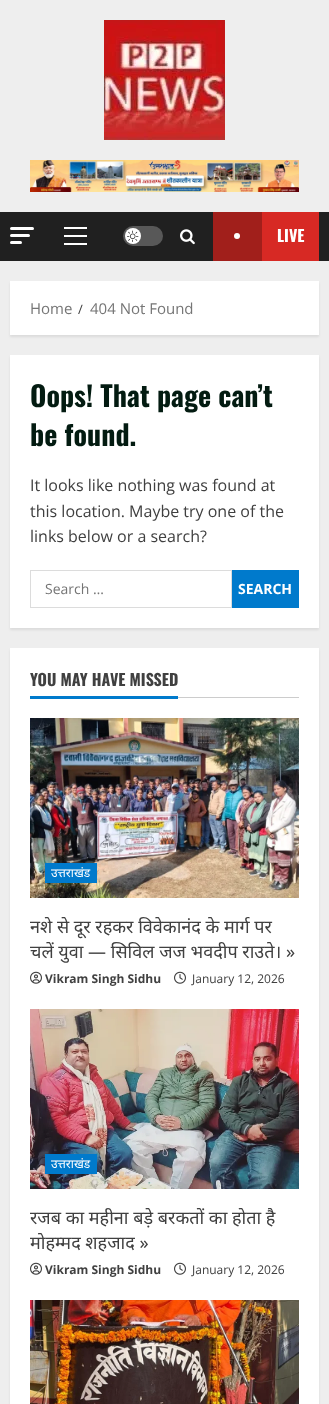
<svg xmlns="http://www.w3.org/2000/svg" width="329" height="1404">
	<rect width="100%" height="100%" fill="#EEEEEE" />
	<image x="104" y="20" width="121" height="120" href="assets/img1.png" />
	<image x="30" y="160" width="269" height="32" href="assets/img2.png" />
	<rect x="0" y="212" width="329" height="49" fill="#202020" />
	<rect x="10" y="227" width="24" height="3" rx="1.5" fill="#FFFFFF" />
	<rect x="10" y="234" width="20" height="3" rx="1.5" fill="#FFFFFF" />
	<rect x="10" y="241" width="12" height="3" rx="1.5" fill="#FFFFFF" />
	<rect x="64" y="235" width="23" height="2" fill="#FFFFFF" />
	<rect x="64" y="227" width="23" height="2" fill="#FFFFFF" />
	<rect x="64" y="243" width="23" height="2" fill="#FFFFFF" />
	<rect x="123" y="226" width="40" height="20" rx="10" fill="#585858" />
	<circle cx="133" cy="236" r="8" fill="#FFFFFF" />
	<image x="127" y="230" width="12" height="12" href="assets/img3.png" />
	<image x="180" y="229" width="15" height="16" href="assets/img4.png" />
	<rect x="262" y="212" width="57" height="49" fill="#D72924" />
	<rect x="213" y="212" width="49" height="49" fill="#A11F1B" />
	<circle cx="237" cy="236" r="3" fill="#FFFFFF" />
	<text x="277" y="242" font-family="Oswald" font-size="16" font-weight="700" fill="#FFFFFF">LIVE</text>
	<rect x="10" y="283" width="309" height="54" fill="#000000" fill-opacity="0.08" filter="blur(1px)" />
	<rect x="10" y="281" width="309" height="54" fill="#FFFFFF" />
	<text x="30" y="314" font-family="Open Sans" font-size="15" fill="#757575">Home</text>
	<text x="78" y="314" font-family="Open Sans" font-size="13" fill="#404040">/</text>
	<text x="90" y="314" font-family="Open Sans" font-size="15" fill="#757575">404 Not Found</text>
	<rect x="10" y="357" width="309" height="273" fill="#000000" fill-opacity="0.08" filter="blur(1px)" />
	<rect x="10" y="355" width="309" height="273" fill="#FFFFFF" />
	<g font-family="Oswald" font-size="28" font-weight="700" fill="#031B11">
		<text x="30" y="407">Oops! That page can’t</text>
		<text x="30" y="446">be found.</text>
	</g>
	<g font-family="Open Sans" font-size="16" fill="#404040">
		<text x="30" y="491">It looks like nothing was found at</text>
		<text x="30" y="517">this location. Maybe try one of the</text>
		<text x="30" y="542">links below or a search?</text>
	</g>
	<rect x="30.5" y="570.5" width="201" height="37" fill="none" stroke="#DCDCDC" />
	<text x="45" y="594" font-family="Open Sans" font-size="14" fill="#757575">Search …</text>
	<rect x="232" y="570" width="67" height="38" fill="#007ACC" />
	<text x="238" y="594" font-family="Open Sans" font-size="14" font-weight="700" fill="#FFFFFF">SEARCH</text>
	<rect x="10" y="650" width="309" height="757" fill="#000000" fill-opacity="0.08" filter="blur(1px)" />
	<rect x="10" y="648" width="309" height="756" fill="#FFFFFF" />
	<rect x="178" y="697" width="121" height="1" fill="#CCCCCC" />
	<text x="30" y="686" font-family="Oswald" font-size="16" font-weight="700" fill="#404040">YOU MAY HAVE MISSED</text>
	<rect x="30" y="696" width="148" height="3" fill="#007ACC" />
	<image x="30" y="718" width="269" height="180" href="assets/img5.png" />
	<rect x="45" y="863" width="52" height="20" fill="#007ACC" />
	<text x="51" y="877" font-family="Noto Sans" font-size="12" fill="#FFFFFF">उत्तराखंड</text>
	<g font-family="Noto Sans" font-size="18" fill="#404040">
		<text x="30" y="933">नशे से दूर रहकर विवेकानंद के मार्ग पर</text>
		<text x="30" y="958">चलें युवा — सिविल जज भवदीप राउते। »</text>
	</g>
	<image x="30" y="971" width="12" height="13" href="assets/img6.png" />
	<text x="45" y="983" font-family="Open Sans" font-size="12" font-weight="700" fill="#404040">Vikram Singh Sidhu</text>
	<image x="174" y="971" width="12" height="13" href="assets/img7.png" />
	<text x="192" y="983" font-family="Open Sans" font-size="12" fill="#404040">January 12, 2026</text>
	<image x="30" y="1009" width="269" height="180" href="assets/img8.png" />
	<rect x="45" y="1154" width="52" height="20" fill="#007ACC" />
	<text x="51" y="1168" font-family="Noto Sans" font-size="12" fill="#FFFFFF">उत्तराखंड</text>
	<g font-family="Noto Sans" font-size="18" fill="#404040">
		<text x="30" y="1224">रजब का महीना बड़े बरकतों का होता है</text>
		<text x="30" y="1249">मोहम्मद शहजाद »</text>
	</g>
	<image x="30" y="1262" width="12" height="13" href="assets/img6.png" />
	<text x="45" y="1274" font-family="Open Sans" font-size="12" font-weight="700" fill="#404040">Vikram Singh Sidhu</text>
	<image x="174" y="1262" width="12" height="13" href="assets/img7.png" />
	<text x="192" y="1274" font-family="Open Sans" font-size="12" fill="#404040">January 12, 2026</text>
	<image x="30" y="1300" width="269" height="104" href="assets/img9.png" />
</svg>
